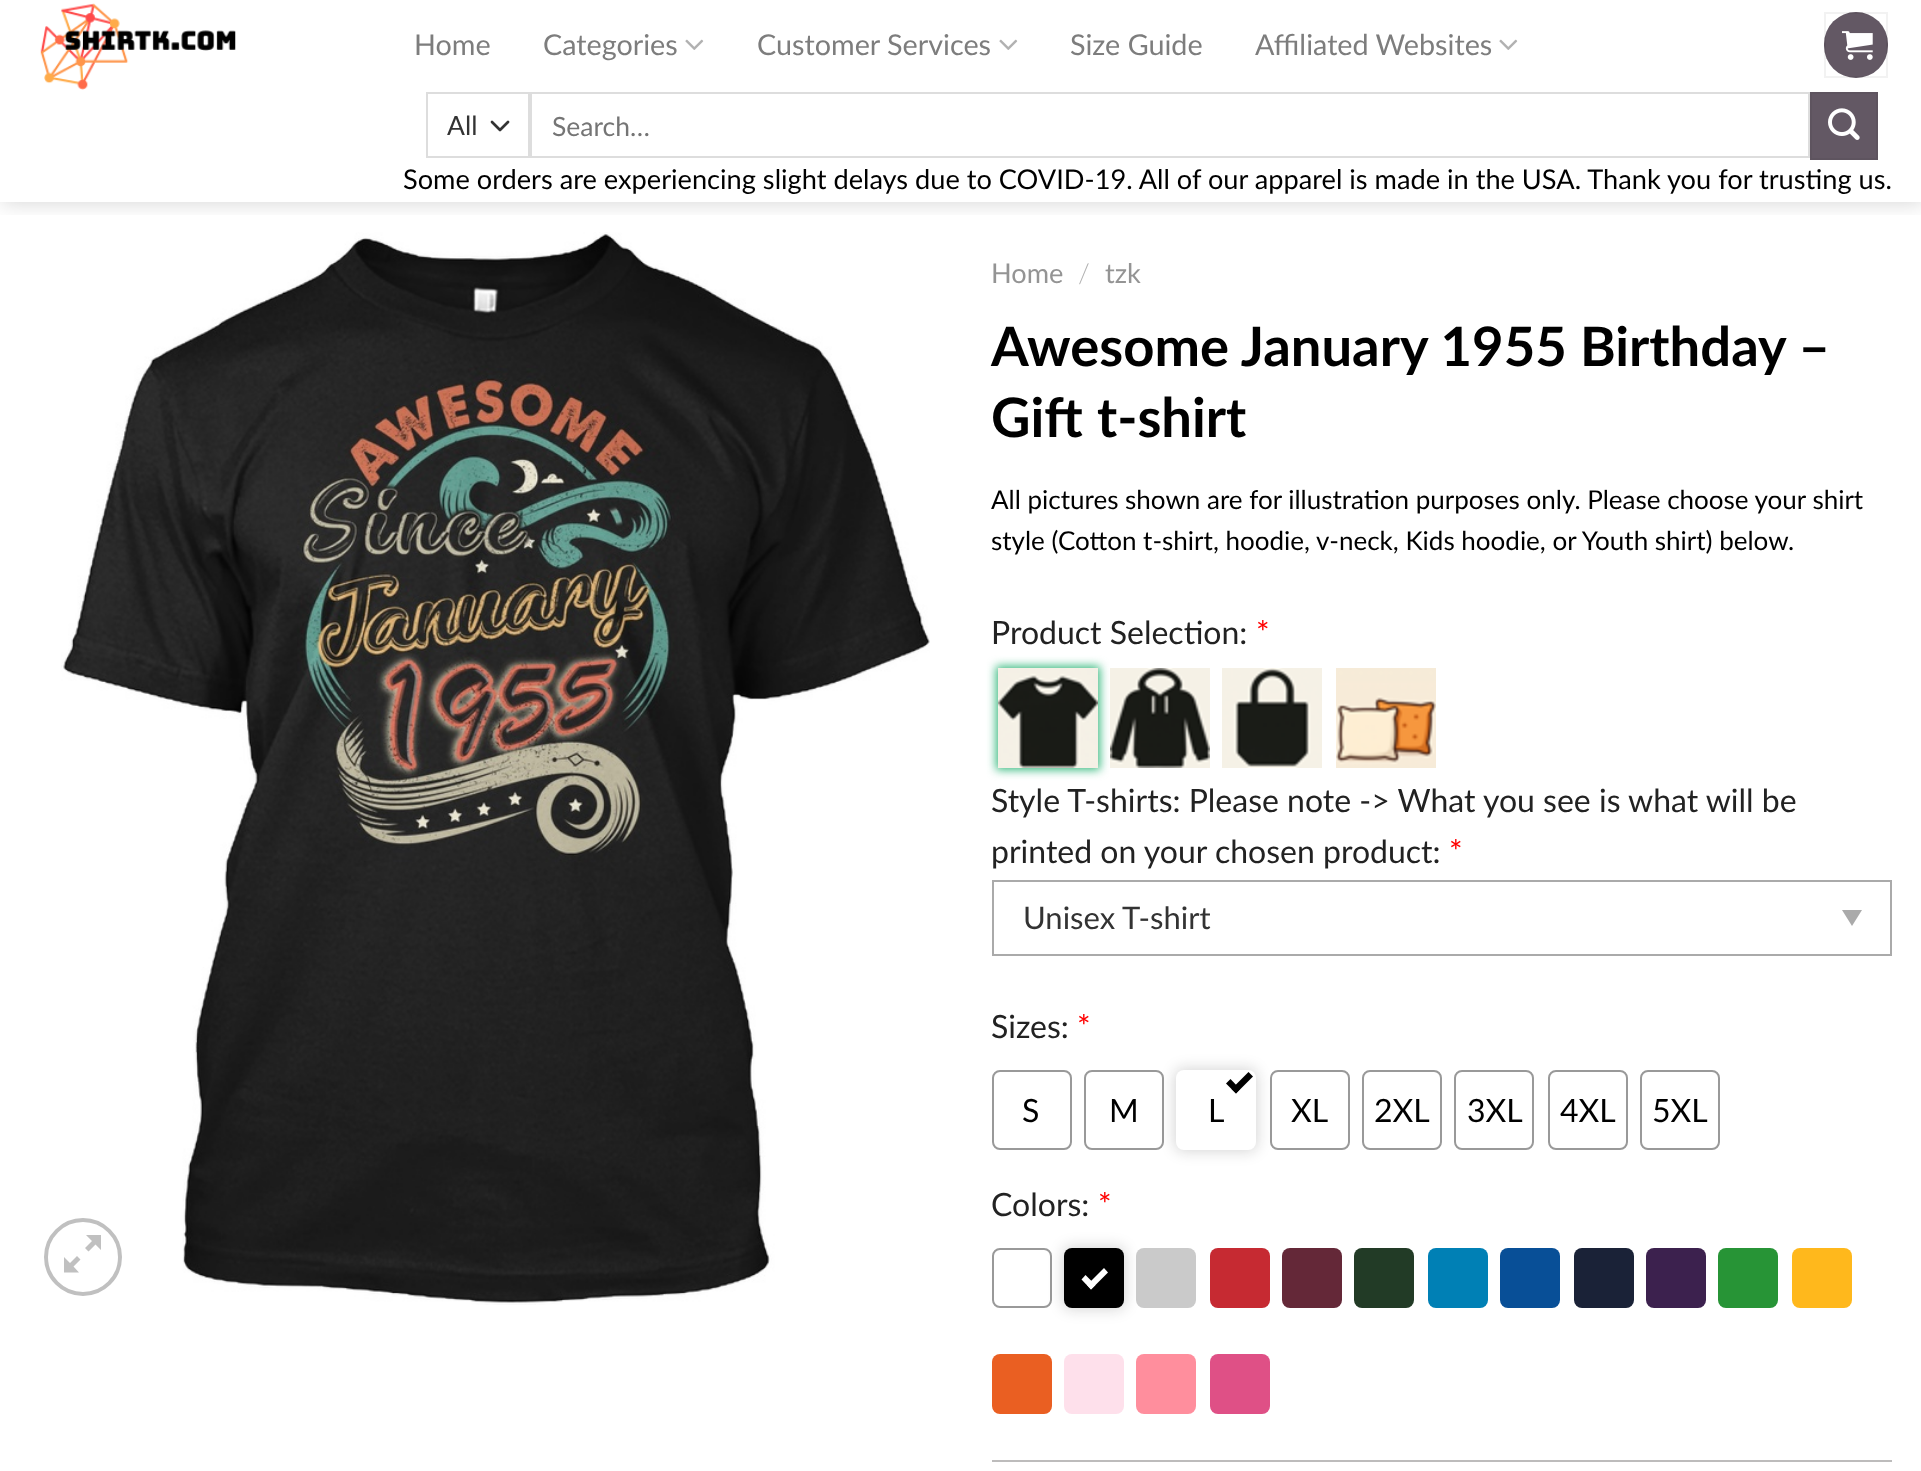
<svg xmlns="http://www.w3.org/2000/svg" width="1921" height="1471">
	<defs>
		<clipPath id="clip1"><rect x="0" y="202" width="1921" height="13" /></clipPath>
	</defs>
	<rect width="100%" height="100%" fill="#FFFFFF" />
	<image x="61" y="232" width="869" height="1073" href="assets/img5.png" />
	<g clip-path="url(#clip1)">
		<rect x="2" y="2" width="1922" height="202" fill="#000000" fill-opacity="0.15" filter="blur(10px)" />
	</g>
	<image x="40" y="3" width="196" height="87" href="assets/img1.png" />
	<g font-family="Lato" font-size="28.75" fill="#7D7D7D">
		<text x="414" y="55">Home</text>
		<text x="543" y="55">Categories</text>
	</g>
	<image x="685" y="39" width="19" height="11" href="assets/img2.png" />
	<text x="757" y="55" font-family="Lato" font-size="28.75" fill="#7D7D7D">Customer Services</text>
	<image x="999" y="39" width="19" height="11" href="assets/img2.png" />
	<g font-family="Lato" font-size="28.75" fill="#7D7D7D">
		<text x="1070" y="55">Size Guide</text>
		<text x="1255" y="55">Affiliated Websites</text>
	</g>
	<image x="1499" y="39" width="19" height="11" href="assets/img2.png" />
	<rect x="1824" y="12" width="64" height="66" rx="32" fill="#635864" />
	<rect x="1825" y="13" width="62" height="64" fill="none" stroke="#000000" stroke-opacity="0.05" stroke-width="2" />
	<image x="1842" y="31" width="31" height="29" href="assets/img3.png" />
	<path d="M492 122L500 130L508 122" fill="none" stroke="#333333" stroke-width="2.7" stroke-linecap="round" stroke-linejoin="round" />
	<rect x="427" y="93" width="102" height="64" fill="none" stroke="#DDDDDD" stroke-width="2" />
	<text x="447" y="135" font-family="Lato" font-size="26.5" fill="#333333">All</text>
	<rect x="531" y="93" width="1278" height="64" fill="none" stroke="#DDDDDD" stroke-width="2" />
	<text x="552" y="136" font-family="Lato" font-size="26.5" fill="#757575">Search…</text>
	<rect x="1811" y="93" width="66" height="66" fill="#635864" stroke="#5E545F" stroke-width="2" />
	<image x="1828" y="108" width="32" height="32" href="assets/img4.png" />
	<text x="403" y="189" font-family="Lato" font-size="27.2" fill="#000000">Some orders are experiencing slight delays due to COVID-19. All of our apparel is made in the USA. Thank you for trusting us.</text>
	<circle cx="83" cy="1257" r="37" fill="none" stroke="#C0C0C0" stroke-width="4" />
	<path d="M101 1235V1250L95.5 1244.5L88.5 1251.5L85 1248L92 1241L86 1235ZM80.5 1259.5L73.5 1266.5L79 1272.5H64V1257L70 1263L77 1256Z" fill="#C0C0C0" />
	<text x="991" y="283" font-family="Lato" font-size="27.2" fill="#949494">Home</text>
	<text x="1078" y="283" font-family="Lato" font-size="27.2" font-weight="300" fill="#B2B2B2">/</text>
	<text x="1105" y="283" font-family="Lato" font-size="27.2" fill="#949494">tzk</text>
	<g font-family="Lato" font-size="54.4" font-weight="700" fill="#000000">
		<text x="991" y="366">Awesome January 1955 Birthday –</text>
		<text x="991" y="437" word-spacing="1">Gift t-shirt</text>
	</g>
	<g font-family="Lato" font-size="26" fill="#000000">
		<text x="991" y="509">All pictures shown are for illustration purposes only. Please choose your shirt</text>
		<text x="991" y="550">style (Cotton t-shirt, hoodie, v-neck, Kids hoodie, or Youth shirt) below.</text>
	</g>
	<text x="991" y="644" font-family="Lato" font-size="32" fill="#222222">Product Selection:</text>
	<text x="1256" y="644" font-family="Lato" font-size="32" fill="#FF0000">*</text>
	<rect x="996" y="666" width="104" height="104" fill="#36B97E" filter="blur(5px)" />
	<image x="998" y="668" width="100" height="100" href="assets/img6.png" />
	<image x="1110" y="668" width="100" height="100" href="assets/img7.png" />
	<image x="1222" y="668" width="100" height="100" href="assets/img8.png" />
	<image x="1336" y="668" width="100" height="100" href="assets/img9.png" />
	<g font-family="Lato" font-size="32" fill="#222222">
		<text x="991" y="812">Style T-shirts: Please note -&gt; What you see is what will be</text>
		<text x="991" y="863">printed on your chosen product:</text>
	</g>
	<text x="1449" y="863" font-family="Lato" font-size="32" fill="#FF0000">*</text>
	<rect x="993" y="881" width="898" height="74" fill="none" stroke="#AAAAAA" stroke-width="2" />
	<text x="1023" y="929" font-family="Lato" font-size="31" fill="#333333">Unisex T-shirt</text>
	<path d="M1842 910H1862L1852 926Z" fill="#AAAAAA" />
	<text x="991" y="1038" font-family="Lato" font-size="32" fill="#222222">Sizes:</text>
	<text x="1077" y="1038" font-family="Lato" font-size="32" fill="#FF0000">*</text>
	<rect x="993" y="1071" width="78" height="78" rx="7" fill="none" stroke="#999999" stroke-width="2" />
	<text x="1022" y="1122" font-family="Lato" font-size="32" fill="#000000">S</text>
	<rect x="1085" y="1071" width="78" height="78" rx="7" fill="none" stroke="#999999" stroke-width="2" />
	<text x="1109" y="1122" font-family="Lato" font-size="32" fill="#000000">M</text>
	<rect x="1174" y="1068" width="84" height="84" rx="10" fill="#0E0E0E" fill-opacity="0.16" filter="blur(7px)" />
	<rect x="1176" y="1070" width="80" height="80" rx="8" fill="#FFFFFF" />
	<path d="M1248.5 1072L1253 1076.5L1236 1093.5L1231.5 1089Z" fill="#000000" />
	<path d="M1230.5 1079L1240 1089L1236 1093.5L1226 1083.5Z" fill="#000000" />
	<text x="1208" y="1122" font-family="Lato" font-size="32" fill="#000000">L</text>
	<rect x="1271" y="1071" width="78" height="78" rx="7" fill="none" stroke="#999999" stroke-width="2" />
	<text x="1291" y="1122" font-family="Lato" font-size="32" fill="#000000">XL</text>
	<rect x="1363" y="1071" width="78" height="78" rx="7" fill="none" stroke="#999999" stroke-width="2" />
	<text x="1374" y="1122" font-family="Lato" font-size="32" fill="#000000">2XL</text>
	<rect x="1455" y="1071" width="78" height="78" rx="7" fill="none" stroke="#999999" stroke-width="2" />
	<text x="1467" y="1122" font-family="Lato" font-size="32" fill="#000000">3XL</text>
	<rect x="1549" y="1071" width="78" height="78" rx="7" fill="none" stroke="#999999" stroke-width="2" />
	<text x="1560" y="1122" font-family="Lato" font-size="32" fill="#000000">4XL</text>
	<rect x="1641" y="1071" width="78" height="78" rx="7" fill="none" stroke="#999999" stroke-width="2" />
	<text x="1652" y="1122" font-family="Lato" font-size="32" fill="#000000">5XL</text>
	<text x="991" y="1216" font-family="Lato" font-size="32" fill="#222222">Colors:</text>
	<text x="1098" y="1216" font-family="Lato" font-size="32" fill="#FF0000">*</text>
	<rect x="993" y="1249" width="58" height="58" rx="7" fill="none" stroke="#999999" stroke-width="2" />
	<rect x="1062" y="1246" width="64" height="64" rx="10" fill="#0E0E0E" fill-opacity="0.16" filter="blur(7px)" />
	<rect x="1064" y="1248" width="60" height="60" rx="8" fill="#000000" />
	<path d="M1104 1268L1108 1272.5L1091 1289.5L1087 1285Z" fill="#FFFFFF" />
	<path d="M1085.5 1275L1095.5 1285L1091 1289.5L1081.5 1279.5Z" fill="#FFFFFF" />
	<rect x="1136" y="1248" width="60" height="60" rx="8" fill="#CACACA" />
	<rect x="1210" y="1248" width="60" height="60" rx="8" fill="#C62A32" />
	<rect x="1282" y="1248" width="60" height="60" rx="8" fill="#642838" />
	<rect x="1354" y="1248" width="60" height="60" rx="8" fill="#223B26" />
	<rect x="1428" y="1248" width="60" height="60" rx="8" fill="#0080B5" />
	<rect x="1500" y="1248" width="60" height="60" rx="8" fill="#084F97" />
	<rect x="1574" y="1248" width="60" height="60" rx="8" fill="#1A2237" />
	<rect x="1646" y="1248" width="60" height="60" rx="8" fill="#3C214E" />
	<rect x="1718" y="1248" width="60" height="60" rx="8" fill="#279436" />
	<rect x="1792" y="1248" width="60" height="60" rx="8" fill="#FFB81C" />
	<rect x="992" y="1354" width="60" height="60" rx="8" fill="#EA5F22" />
	<rect x="1064" y="1354" width="60" height="60" rx="8" fill="#FEE0EB" />
	<rect x="1136" y="1354" width="60" height="60" rx="8" fill="#FF8E9D" />
	<rect x="1210" y="1354" width="60" height="60" rx="8" fill="#DF5086" />
	<rect x="992" y="1460" width="900" height="2" fill="#BDBCBC" />
</svg>
